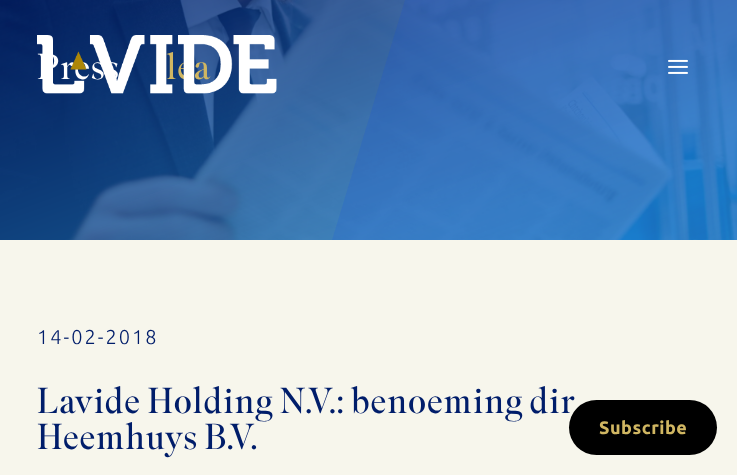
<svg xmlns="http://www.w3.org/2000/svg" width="737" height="475">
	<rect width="100%" height="100%" fill="#FFFFFF" />
	<image x="0" y="0" width="737" height="240" href="assets/img3.png" />
	<text x="37" y="79" font-family="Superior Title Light" font-size="36" font-weight="300" letter-spacing="0.5" fill="#FFFFFF">Press</text>
	<text x="166" y="79" font-family="Superior Title Light" font-size="36" font-weight="300" letter-spacing="0.5" fill="#D0B662">lea</text>
	<image x="37" y="35" width="240" height="59" href="assets/img1.png" />
	<path d="M405 0L332 240H737V0Z" fill="#0045FF" fill-opacity="0.12" />
	<image x="668" y="59" width="20" height="15" href="assets/img2.png" />
	<rect x="0" y="240" width="737" height="235" fill="#F7F6EC" />
	<text x="37" y="344" font-family="Ubuntu" font-size="20" font-weight="300" letter-spacing="2" fill="#001D6A">14-02-2018</text>
	<g font-family="Superior Title Light" font-size="36" font-weight="300" letter-spacing="0.5" fill="#001D6A">
		<text x="37" y="413">Lavide Holding N.V.: benoeming dir</text>
		<text x="37" y="449">Heemhuys B.V.</text>
	</g>
	<rect x="569" y="400" width="148" height="55" rx="27.5" fill="#000000" />
	<text x="599" y="434" font-family="Ubuntu" font-size="18" font-weight="700" letter-spacing="0.5" fill="#D0B662">Subscribe</text>
</svg>
